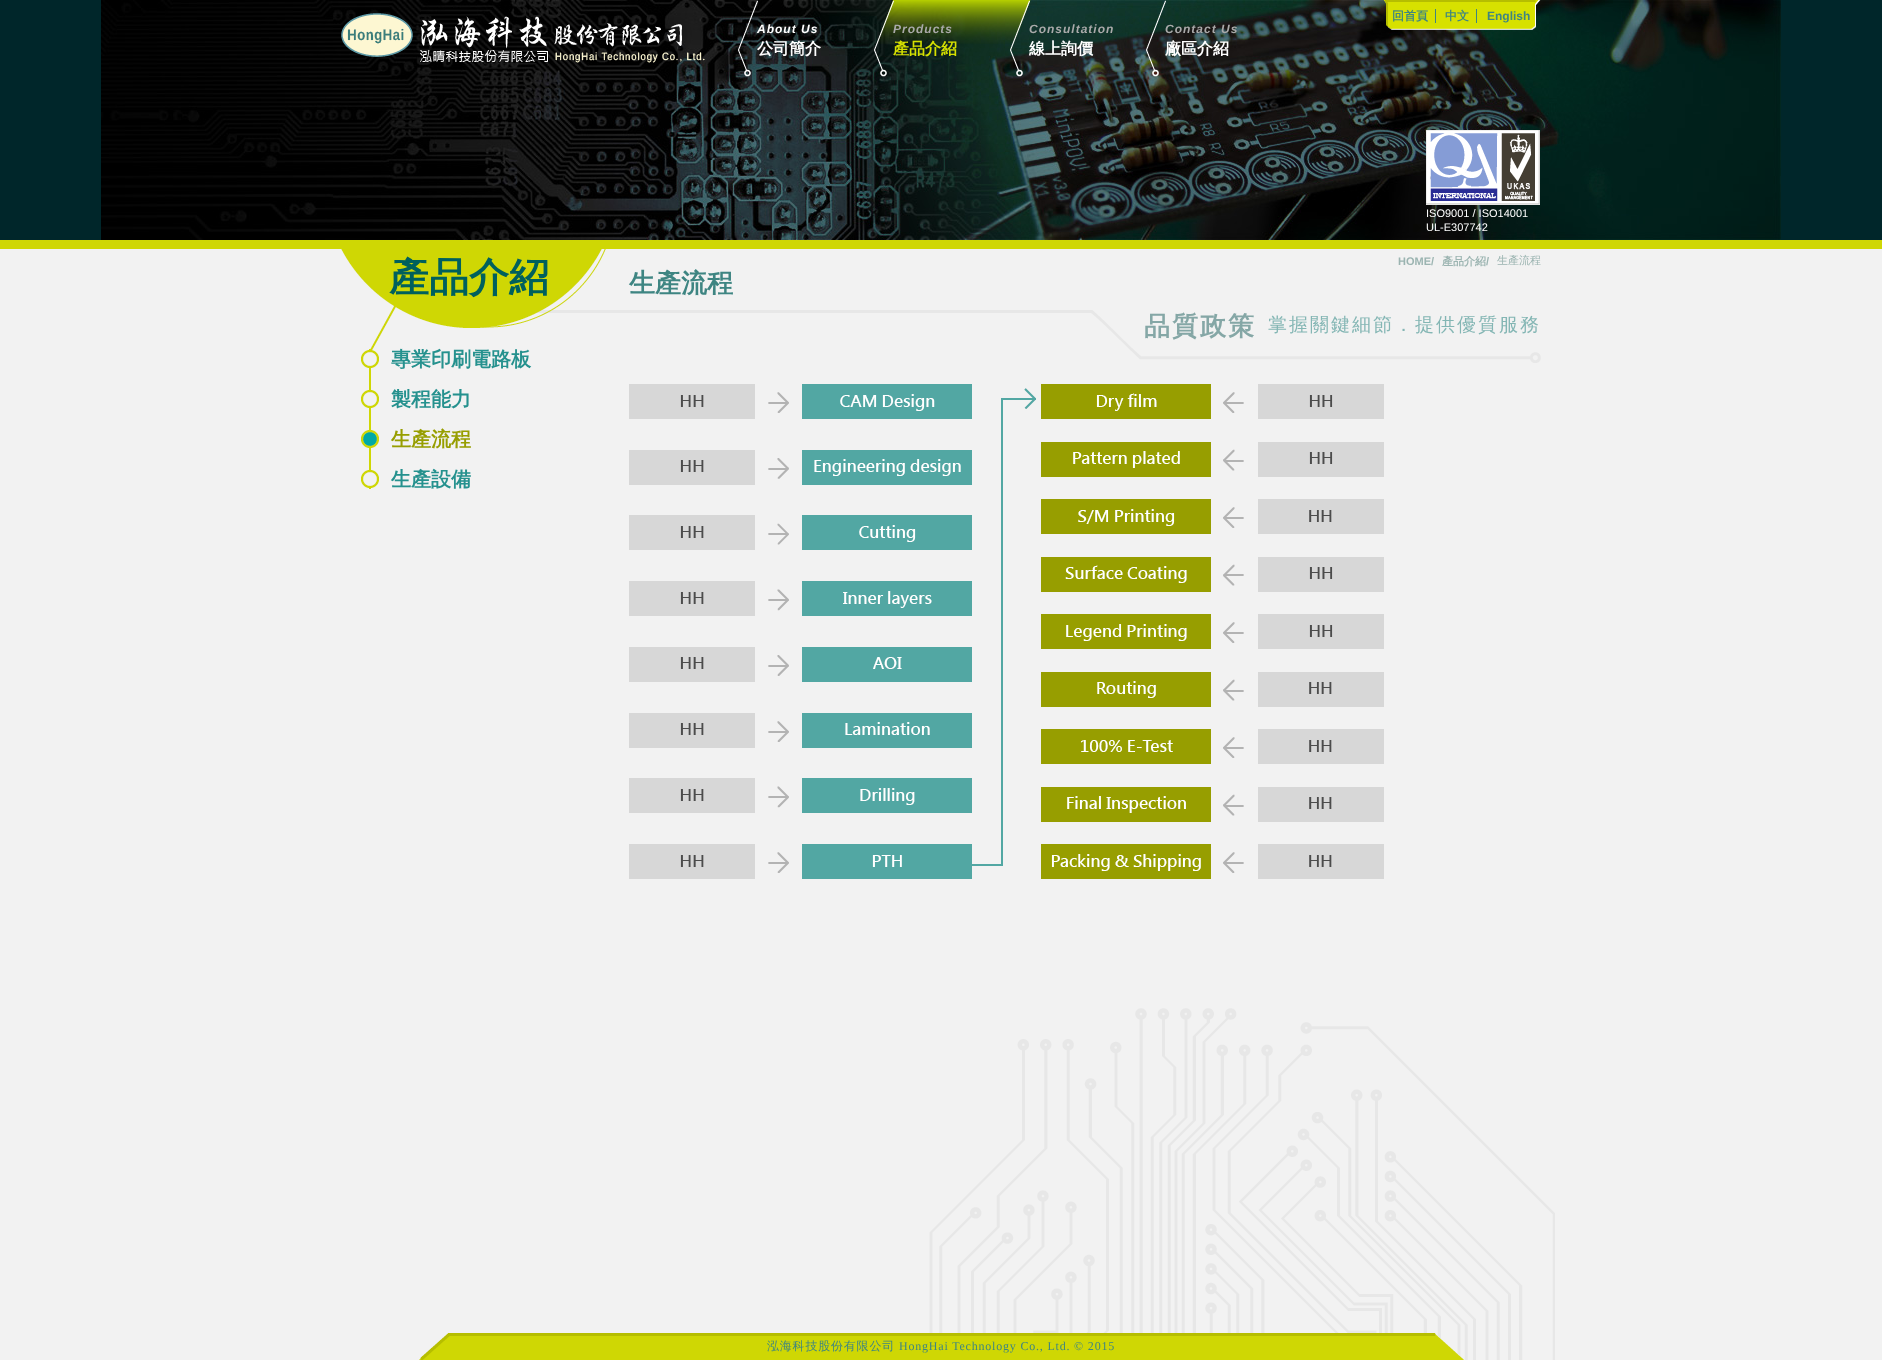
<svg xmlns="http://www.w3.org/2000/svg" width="1882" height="1360">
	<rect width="100%" height="100%" fill="#F2F2F2" />
	<image x="0" y="0" width="1882" height="249" href="assets/img1.png" />
	<image x="929" y="1008" width="626" height="352" href="assets/img2.png" />
	<image x="101" y="0" width="1680" height="240" href="assets/img3.png" />
	<image x="341" y="13" width="364" height="50" href="assets/img4.png" />
	<text x="757" y="33" font-family="Liberation Sans" font-size="12" font-weight="700" font-style="italic" letter-spacing="1" fill="#FFFFFF">About Us</text>
	<text x="757" y="54" font-family="WenQuanYi Zen Hei" font-size="16" font-weight="700" fill="#FFFFFF">公司簡介</text>
	<image x="738" y="0" width="20" height="77" href="assets/img5.png" />
	<image x="877" y="0" width="154" height="44" href="assets/img6.png" />
	<text x="893" y="33" font-family="Liberation Sans" font-size="12" font-weight="700" font-style="italic" letter-spacing="1" fill="#AAAAAA">Products</text>
	<text x="893" y="54" font-family="WenQuanYi Zen Hei" font-size="16" font-weight="700" fill="#D6E000">產品介紹</text>
	<image x="874" y="0" width="20" height="77" href="assets/img7.png" />
	<text x="1029" y="33" font-family="Liberation Sans" font-size="12" font-weight="700" font-style="italic" letter-spacing="1" fill="#AAAAAA">Consultation</text>
	<text x="1029" y="54" font-family="WenQuanYi Zen Hei" font-size="16" font-weight="700" fill="#FFFFFF">線上詢價</text>
	<image x="1010" y="0" width="20" height="77" href="assets/img8.png" />
	<text x="1165" y="33" font-family="Liberation Sans" font-size="12" font-weight="700" font-style="italic" letter-spacing="1" fill="#AAAAAA">Contact Us</text>
	<text x="1165" y="54" font-family="WenQuanYi Zen Hei" font-size="16" font-weight="700" fill="#FFFFFF">廠區介紹</text>
	<image x="1146" y="0" width="20" height="77" href="assets/img9.png" />
	<image x="1383" y="0" width="158" height="30" href="assets/img10.png" />
	<text x="1392" y="20" font-family="WenQuanYi Zen Hei" font-size="12" font-weight="700" fill="#3E8582">回首頁</text>
	<rect x="1435" y="9" width="1" height="14" fill="#3E8582" />
	<text x="1445" y="20" font-family="WenQuanYi Zen Hei" font-size="12" font-weight="700" fill="#3E8582">中文</text>
	<rect x="1476" y="9" width="1" height="14" fill="#3E8582" />
	<text x="1487" y="20" font-family="Liberation Sans" font-size="12" font-weight="700" fill="#3E8582">English</text>
	<image x="1426" y="130" width="114" height="75" href="assets/img11.png" />
	<g font-family="Liberation Sans" font-size="11" fill="#FFFFFF">
		<text x="1426" y="217">ISO9001 / ISO14001</text>
		<text x="1426" y="231">UL-E307742</text>
	</g>
	<image x="341" y="249" width="341" height="101" href="assets/img12.png" />
	<text x="389" y="291" font-family="WenQuanYi Zen Hei" font-size="40" font-weight="700" fill="#00605D">產品介紹</text>
	<text x="1398" y="265" font-family="Liberation Sans" font-size="11" font-weight="700" fill="#9BB4B1">HOME/</text>
	<text x="1442" y="265" font-family="WenQuanYi Zen Hei" font-size="11" font-weight="700" fill="#9BB4B1">產品介紹</text>
	<text x="1486" y="265" font-family="Liberation Sans" font-size="11" font-weight="700" fill="#9BB4B1">/</text>
	<text x="1497" y="264" font-family="WenQuanYi Zen Hei" font-size="11" font-weight="500" fill="#9BB4B1">生產流程</text>
	<image x="682" y="310" width="859" height="53" href="assets/img13.png" />
	<text x="629" y="292" font-family="WenQuanYi Zen Hei" font-size="26" font-weight="700" fill="#3E8582">生產流程</text>
	<text x="1144" y="335" font-family="WenQuanYi Zen Hei" font-size="26" font-weight="700" letter-spacing="2" fill="#85A7A6">品質政策</text>
	<text x="1268" y="331" font-family="WenQuanYi Zen Hei" font-size="19" font-weight="500" letter-spacing="2" fill="#84B6B4">掌握關鍵細節．提供優質服務</text>
	<image x="629" y="384" width="755" height="495" href="assets/img14.png" />
	<rect x="369" y="349" width="2" height="140" fill="#CFD704" />
	<image x="361" y="350" width="18" height="18" href="assets/img15.png" />
	<text x="391" y="366" font-family="WenQuanYi Zen Hei" font-size="20" font-weight="700" fill="#25918E">專業印刷電路板</text>
	<image x="361" y="390" width="18" height="18" href="assets/img15.png" />
	<text x="391" y="406" font-family="WenQuanYi Zen Hei" font-size="20" font-weight="700" fill="#25918E">製程能力</text>
	<image x="361" y="430" width="18" height="18" href="assets/img16.png" />
	<text x="391" y="446" font-family="WenQuanYi Zen Hei" font-size="20" font-weight="700" fill="#979E00">生產流程</text>
	<image x="361" y="470" width="18" height="18" href="assets/img15.png" />
	<text x="391" y="486" font-family="WenQuanYi Zen Hei" font-size="20" font-weight="700" fill="#25918E">生產設備</text>
	<image x="419" y="1333" width="1045" height="27" href="assets/img17.png" />
	<text x="767" y="1350" font-family="WenQuanYi Zen Hei" font-size="12" font-weight="500" letter-spacing="0.8" fill="#3E8582">泓海科技股份有限公司</text>
	<text x="899" y="1350" font-family="Liberation Serif" font-size="12" letter-spacing="0.8" fill="#3E8582">HongHai Technology Co., Ltd. © 2015</text>
</svg>
